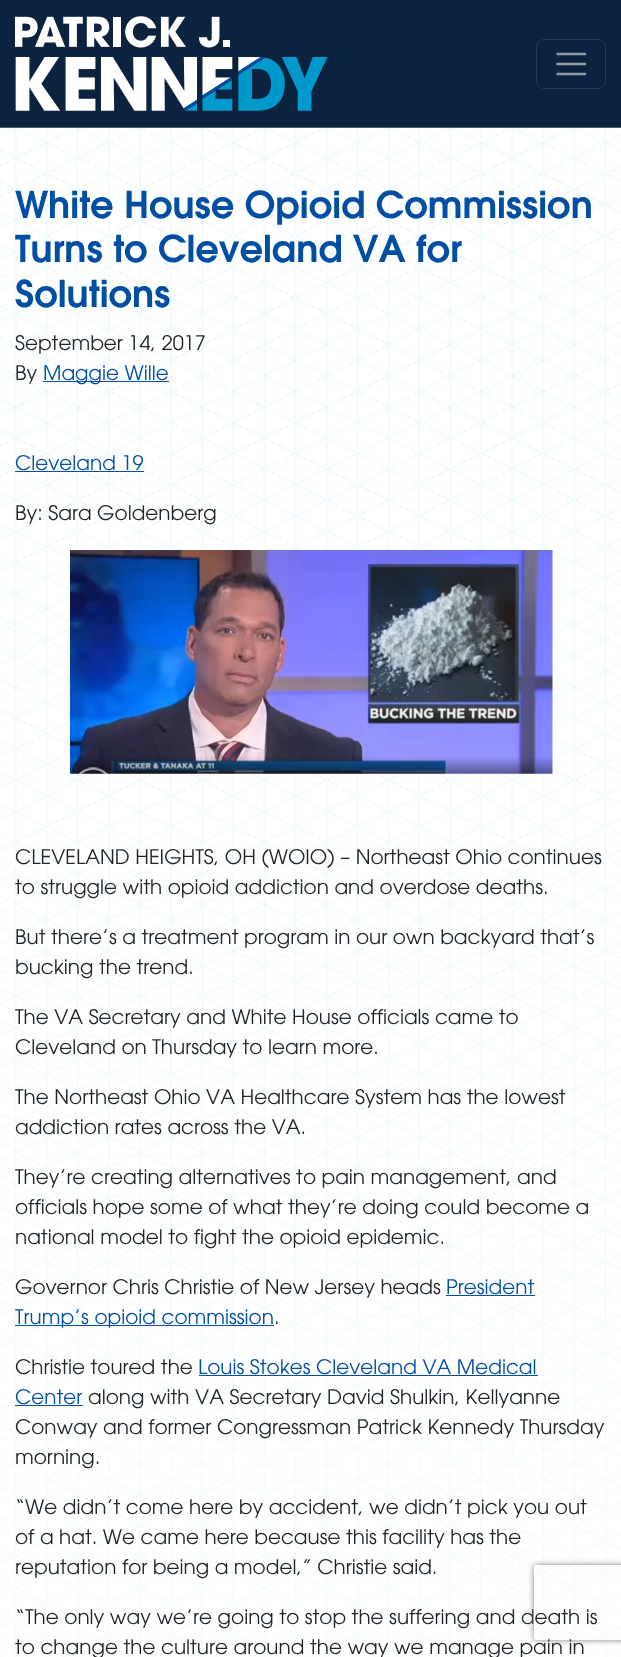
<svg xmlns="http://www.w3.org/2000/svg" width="621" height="1657">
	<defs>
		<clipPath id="clip1"><path d="M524 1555H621V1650H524ZM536.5 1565H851.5C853 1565 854 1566 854 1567.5V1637.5C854 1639 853 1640 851.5 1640H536.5C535 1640 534 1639 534 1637.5V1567.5C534 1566 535 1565 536.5 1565Z" clip-rule="evenodd" /></clipPath>
	</defs>
	<rect width="100%" height="100%" fill="#FFFFFF" />
	<rect x="0" y="0" width="621" height="128" fill="#0C2340" />
	<image x="15" y="16" width="313" height="95" href="assets/img1.png" />
	<rect x="536.5" y="39.5" width="69" height="49" rx="7.5" fill="none" stroke="#243953" />
	<path d="M557.5 54H585M557.5 64H585M557.5 74H585" fill="none" stroke="#929CA9" stroke-width="2.5" stroke-linecap="round" />
	<image x="0" y="127" width="621" height="1530" href="assets/img2.png" />
	<g font-family="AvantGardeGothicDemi" font-size="36.8" fill="#024EA2">
		<text x="15" y="218">White House Opioid Commission</text>
		<text x="15" y="262">Turns to Cleveland VA for</text>
		<text x="15" y="307">Solutions</text>
	</g>
	<g font-family="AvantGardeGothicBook" font-size="20" fill="#212529">
		<text x="15" y="350">September 14, 2017</text>
		<text x="15" y="380">By</text>
	</g>
	<rect x="43" y="381" width="126" height="1" fill="#024EA2" />
	<g font-family="AvantGardeGothicBook" font-size="20" fill="#024EA2">
		<text x="43" y="380">Maggie Wille</text>
		<text x="15" y="470">Cleveland 19</text>
	</g>
	<rect x="15" y="471" width="129" height="1" fill="#024EA2" />
	<text x="15" y="520" font-family="AvantGardeGothicBook" font-size="20" fill="#212529">By: Sara Goldenberg</text>
	<image x="70" y="550" width="483" height="224" href="assets/img3.png" />
	<g font-family="AvantGardeGothicBook" font-size="20" fill="#212529">
		<text x="15" y="864">CLEVELAND HEIGHTS, OH (WOIO) – Northeast Ohio continues</text>
		<text x="15" y="894">to struggle with opioid addiction and overdose deaths.</text>
		<text x="15" y="944">But there’s a treatment program in our own backyard that’s</text>
		<text x="15" y="974">bucking the trend.</text>
		<text x="15" y="1024">The VA Secretary and White House officials came to</text>
		<text x="15" y="1054">Cleveland on Thursday to learn more.</text>
		<text x="15" y="1104">The Northeast Ohio VA Healthcare System has the lowest</text>
		<text x="15" y="1134">addiction rates across the VA.</text>
		<text x="15" y="1184">They’re creating alternatives to pain management, and</text>
		<text x="15" y="1214">officials hope some of what they’re doing could become a</text>
		<text x="15" y="1244">national model to fight the opioid epidemic.</text>
		<text x="15" y="1294">Governor Chris Christie of New Jersey heads</text>
	</g>
	<text x="446" y="1294" font-family="AvantGardeGothicBook" font-size="20" fill="#024EA2">President</text>
	<rect x="446" y="1295" width="89" height="1" fill="#024EA2" />
	<rect x="15" y="1325" width="259" height="1" fill="#024EA2" />
	<text x="15" y="1324" font-family="AvantGardeGothicBook" font-size="20" fill="#024EA2">Trump’s opioid commission</text>
	<g font-family="AvantGardeGothicBook" font-size="20" fill="#212529">
		<text x="274" y="1324">.</text>
		<text x="15" y="1374">Christie toured the</text>
	</g>
	<text x="198" y="1374" font-family="AvantGardeGothicBook" font-size="20" fill="#024EA2">Louis Stokes Cleveland VA Medical</text>
	<rect x="199" y="1375" width="339" height="1" fill="#024EA2" />
	<text x="15" y="1404" font-family="AvantGardeGothicBook" font-size="20" fill="#024EA2">Center</text>
	<rect x="15" y="1405" width="68" height="1" fill="#024EA2" />
	<g font-family="AvantGardeGothicBook" font-size="20" fill="#212529">
		<text x="88" y="1404">along with VA Secretary David Shulkin, Kellyanne</text>
		<text x="15" y="1434">Conway and former Congressman Patrick Kennedy Thursday</text>
		<text x="15" y="1464">morning.</text>
		<text x="15" y="1514">“We didn’t come here by accident, we didn’t pick you out</text>
		<text x="15" y="1544">of a hat. We came here because this facility has the</text>
		<text x="15" y="1574">reputation for being a model,” Christie said.</text>
		<text x="15" y="1624">“The only way we’re going to stop the suffering and death is</text>
		<text x="15" y="1654">to change the culture around the way we manage pain in</text>
	</g>
	<g clip-path="url(#clip1)">
		<rect x="534" y="1565" width="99" height="75" rx="2.5" fill="#808080" filter="blur(3px)" />
	</g>
</svg>
